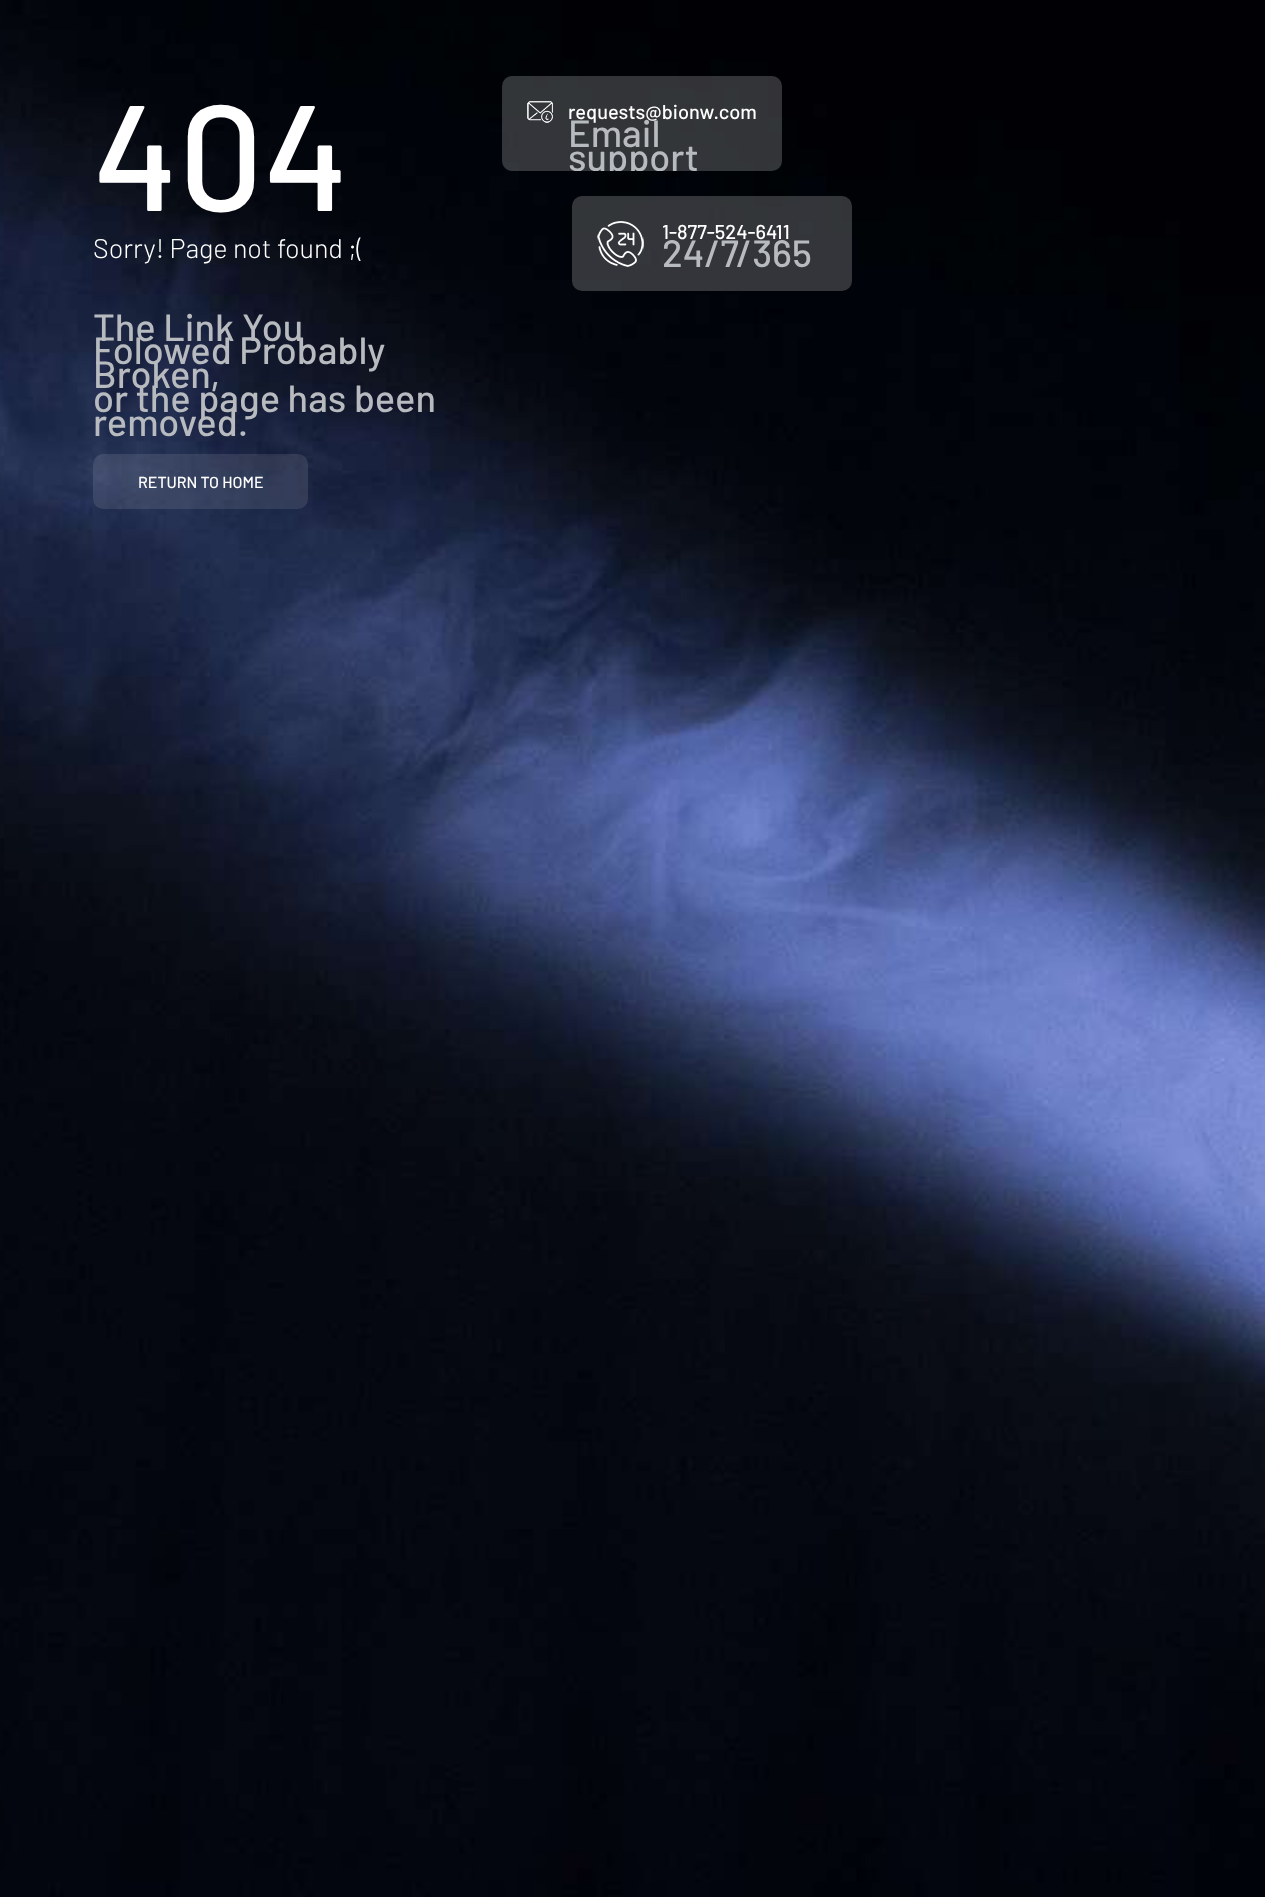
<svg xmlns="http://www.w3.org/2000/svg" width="1265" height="1897">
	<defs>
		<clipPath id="clip1"><rect x="502" y="76" width="280" height="95" rx="10" /></clipPath>
	</defs>
	<rect width="100%" height="100%" fill="#FFFFFF" />
	<image x="0" y="0" width="1265" height="1897" href="assets/img1.png" />
	<text x="93" y="211" font-family="Barlow" font-size="150" font-weight="500" fill="#FFFFFF">404</text>
	<text x="93" y="258" font-family="Barlow" font-size="27" font-weight="300" fill="#FFFFFF">Sorry! Page not found ;(</text>
	<g font-family="Barlow" font-size="38" font-weight="500" fill="#B7BABE">
		<text x="93" y="341">The Link You</text>
		<text x="93" y="364">Folowed Probably</text>
		<text x="93" y="388">Broken,</text>
		<text x="93" y="412">or the page has been</text>
		<text x="93" y="436">removed.</text>
	</g>
	<rect x="93" y="454" width="215" height="55" rx="10" fill="#FFFFFF" fill-opacity="0.1" />
	<text x="138" y="488" font-family="Barlow" font-size="16" font-weight="500" fill="#FFFFFF">RETURN TO HOME</text>
	<rect x="502" y="76" width="280" height="95" rx="10" fill="#FFFFFF" fill-opacity="0.2" />
	<image x="527" y="101" width="26" height="22" href="assets/img2.png" />
	<text x="568" y="119" font-family="Barlow" font-size="20" font-weight="500" fill="#FFFFFF">requests@bionw.com</text>
	<text x="568" y="147" font-family="Barlow" font-size="38" font-weight="500" fill="#B7BABE">Email</text>
	<g clip-path="url(#clip1)">
		<text x="568" y="171" font-family="Barlow" font-size="38" font-weight="500" fill="#B7BABE">support</text>
	</g>
	<rect x="572" y="196" width="280" height="95" rx="10" fill="#FFFFFF" fill-opacity="0.2" />
	<image x="597" y="221" width="47" height="46" href="assets/img3.png" />
	<text x="662" y="239" font-family="Barlow" font-size="20" font-weight="500" fill="#FFFFFF">1-877-524-6411</text>
	<text x="662" y="267" font-family="Barlow" font-size="38" font-weight="500" fill="#B7BABE">24/7/365</text>
</svg>
